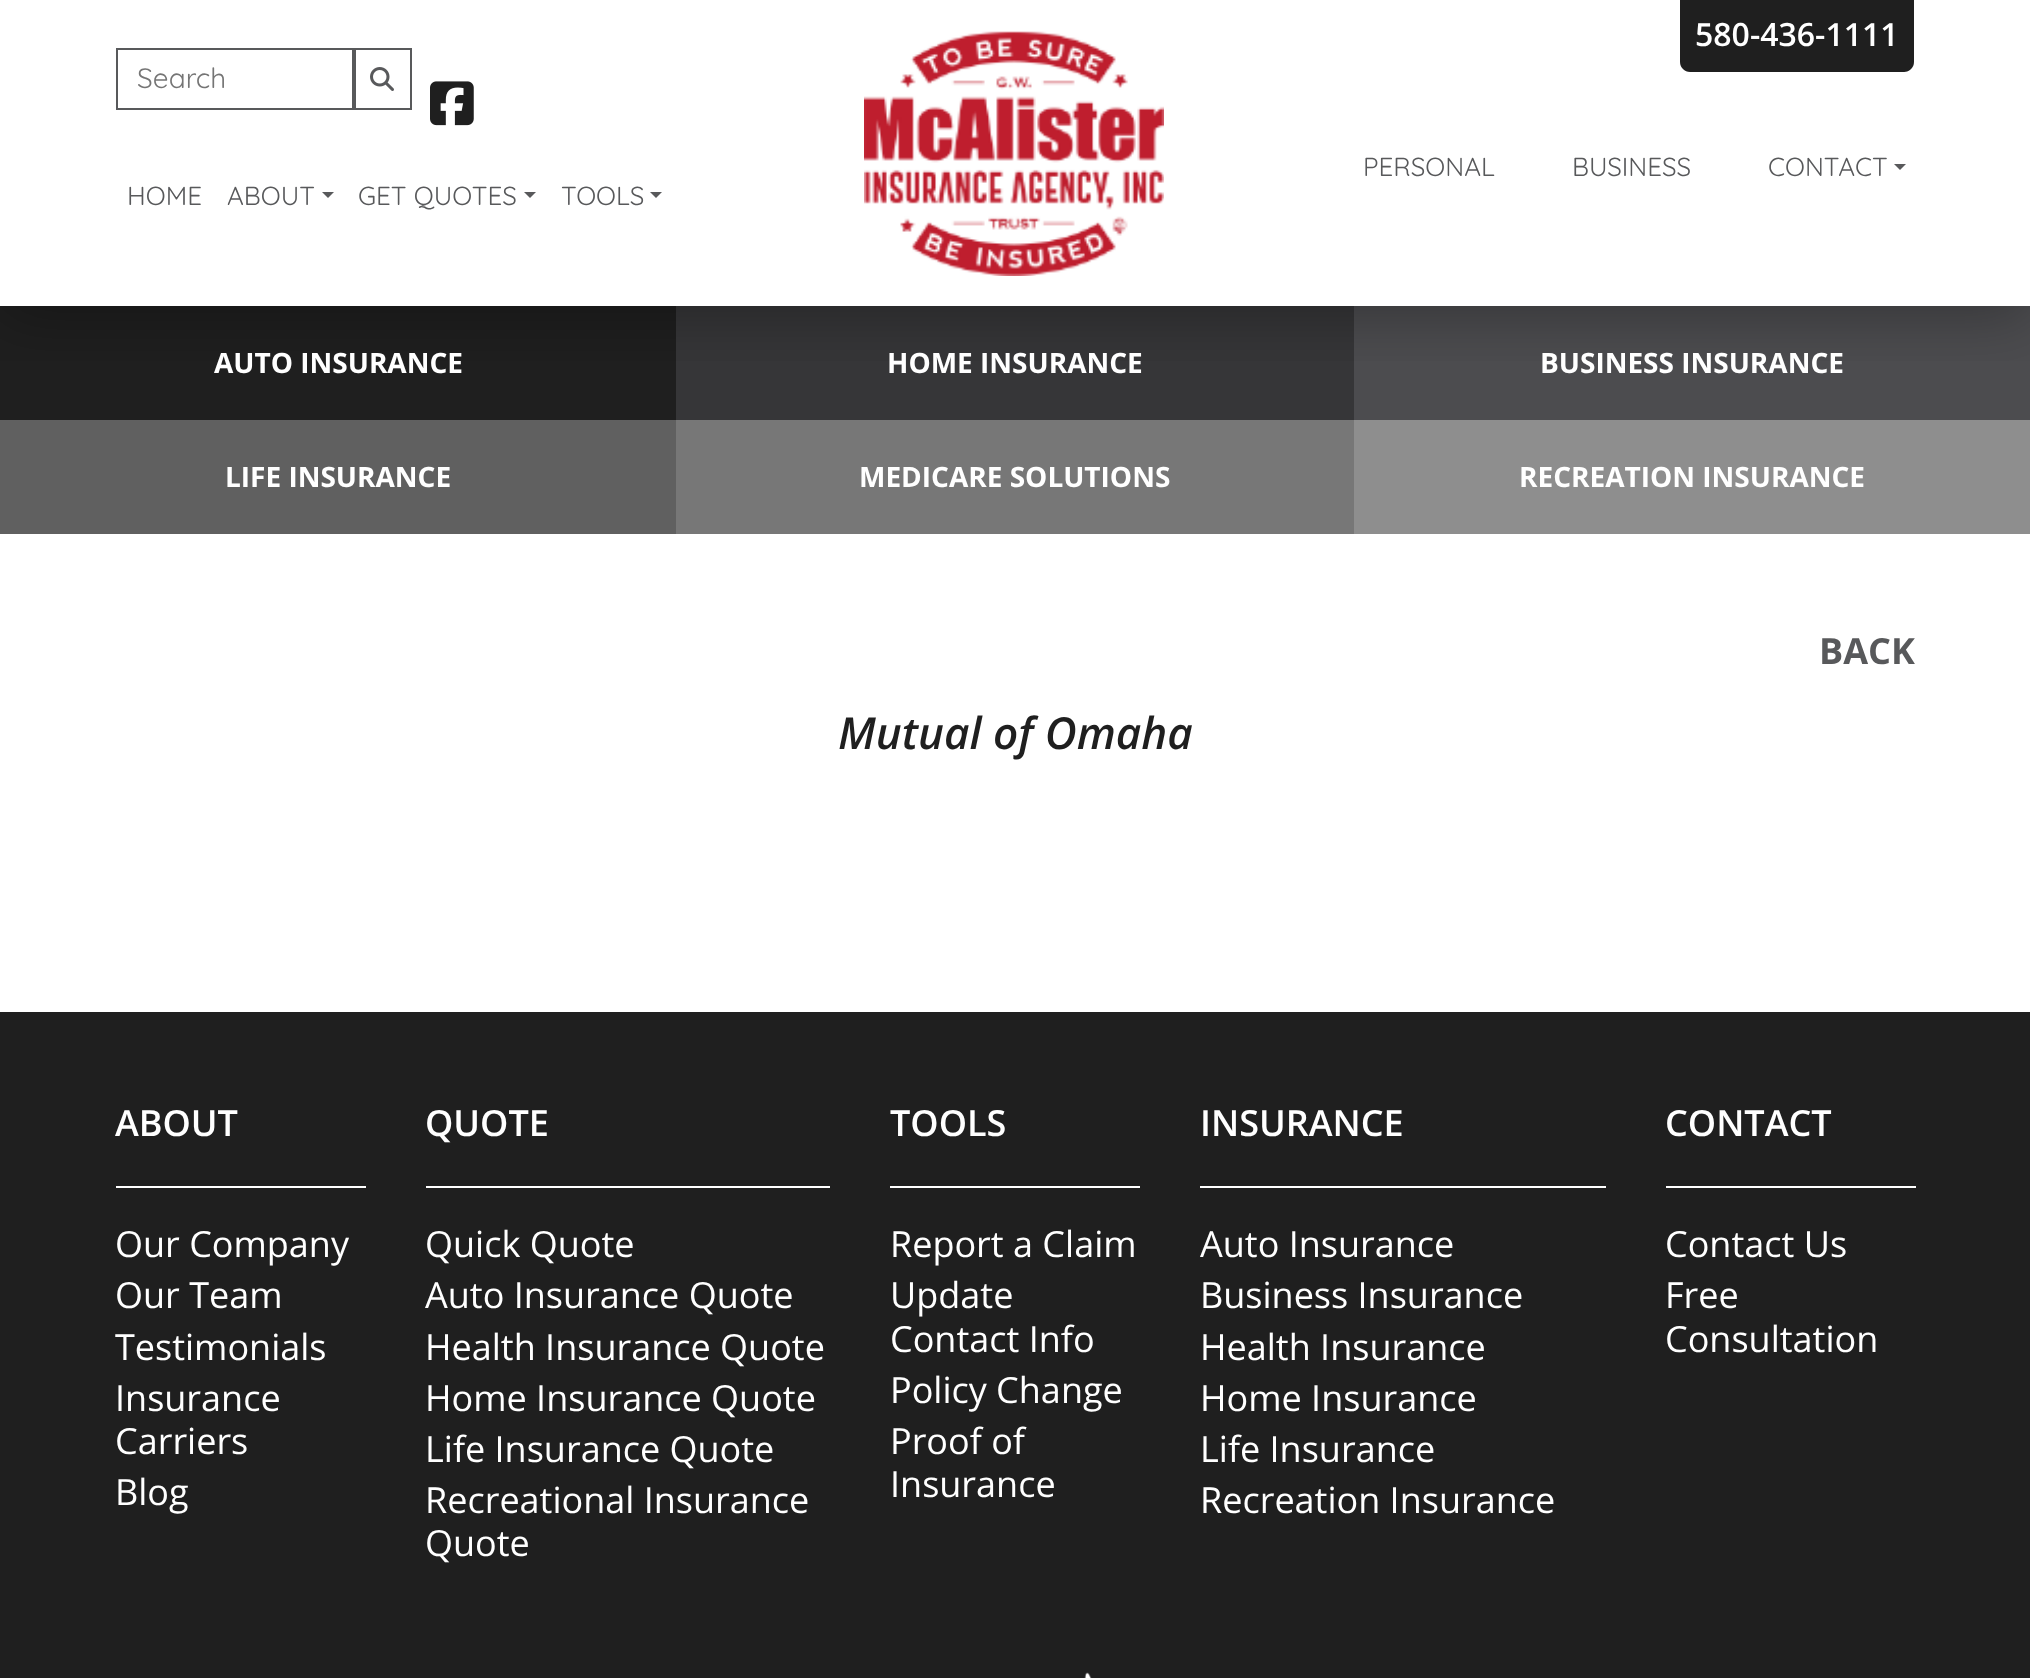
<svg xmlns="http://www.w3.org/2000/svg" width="2030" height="1678">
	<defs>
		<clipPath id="clip1"><rect x="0" y="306" width="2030" height="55" /></clipPath>
	</defs>
	<rect width="100%" height="100%" fill="#FFFFFF" />
	<rect x="0" y="306" width="676" height="114" fill="#1F1F1F" />
	<rect x="676" y="306" width="678" height="114" fill="#363638" />
	<rect x="1354" y="306" width="676" height="114" fill="#4C4C4F" />
	<g clip-path="url(#clip1)">
		<rect x="0" y="10" width="2030" height="306" fill="#000000" fill-opacity="0.3" filter="blur(30px)" />
	</g>
	<rect x="117" y="49" width="238" height="60" fill="none" stroke="#58595B" stroke-width="2" />
	<text x="137" y="88" font-family="Quicksand" font-size="28" fill="#757575">Search</text>
	<rect x="353" y="49" width="58" height="60" fill="none" stroke="#58595B" stroke-width="2" />
	<image x="370" y="67" width="24" height="24" href="assets/img1.png" />
	<image x="430" y="81" width="44" height="45" href="assets/img2.png" />
	<g font-family="Quicksand" font-size="26" fill="#58595B">
		<text x="127" y="205">HOME</text>
		<text x="227" y="205">ABOUT</text>
	</g>
	<path d="M322 192H334L328 198Z" fill="#58595B" />
	<text x="358" y="205" font-family="Quicksand" font-size="26" fill="#58595B">GET QUOTES</text>
	<path d="M524 192H536L530 198Z" fill="#58595B" />
	<text x="561" y="205" font-family="Quicksand" font-size="26" fill="#58595B">TOOLS</text>
	<path d="M650 192H662L656 198Z" fill="#58595B" />
	<image x="864" y="31" width="300" height="245" href="assets/img3.png" />
	<path d="M1680-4H1914V62C1914 67.5 1909.5 72 1904 72H1690C1684.5 72 1680 67.5 1680 62Z" fill="#1F1F1F" />
	<text x="1695" y="46" font-family="Open Sans" font-size="32" font-weight="600" fill="#FFFFFF">580-436-1111</text>
	<g font-family="Quicksand" font-size="26" fill="#58595B">
		<text x="1363" y="176">PERSONAL</text>
		<text x="1572" y="176">BUSINESS</text>
		<text x="1768" y="176">CONTACT</text>
	</g>
	<path d="M1894 164H1906L1900 170Z" fill="#58595B" />
	<g font-family="Open Sans" font-size="28" font-weight="700" fill="#FFFFFF">
		<text x="214" y="373">AUTO INSURANCE</text>
		<text x="887" y="373">HOME INSURANCE</text>
		<text x="1540" y="373">BUSINESS INSURANCE</text>
	</g>
	<rect x="0" y="420" width="676" height="114" fill="#606060" />
	<text x="225" y="487" font-family="Open Sans" font-size="28" font-weight="700" fill="#FFFFFF">LIFE INSURANCE</text>
	<rect x="676" y="420" width="678" height="114" fill="#777777" />
	<text x="859" y="487" font-family="Open Sans" font-size="28" font-weight="700" fill="#FFFFFF">MEDICARE SOLUTIONS</text>
	<rect x="1354" y="420" width="676" height="114" fill="#8E8E8E" />
	<text x="1519" y="487" font-family="Open Sans" font-size="28" font-weight="700" fill="#FFFFFF">RECREATION INSURANCE</text>
	<text x="1819" y="664" font-family="Open Sans" font-size="36" font-weight="700" fill="#58595B">BACK</text>
	<text x="838" y="749" font-family="Open Sans" font-size="44" font-weight="600" font-style="italic" fill="#1F1F1F">Mutual of Omaha</text>
	<rect x="0" y="1012" width="2030" height="666" fill="#1F1F1F" />
	<rect x="116" y="1186" width="250" height="2" fill="#FFFFFF" />
	<text x="115" y="1136" font-family="Open Sans" font-size="36" font-weight="600" fill="#FFFFFF">ABOUT</text>
	<g font-family="Open Sans" font-size="36" fill="#FFFFFF">
		<text x="115" y="1257">Our Company</text>
		<text x="115" y="1308">Our Team</text>
		<text x="115" y="1360">Testimonials</text>
		<text x="115" y="1411">Insurance</text>
		<text x="115" y="1454">Carriers</text>
		<text x="115" y="1505">Blog</text>
	</g>
	<rect x="426" y="1186" width="404" height="2" fill="#FFFFFF" />
	<text x="425" y="1136" font-family="Open Sans" font-size="36" font-weight="600" fill="#FFFFFF">QUOTE</text>
	<g font-family="Open Sans" font-size="36" fill="#FFFFFF">
		<text x="425" y="1257">Quick Quote</text>
		<text x="425" y="1308">Auto Insurance Quote</text>
		<text x="425" y="1360">Health Insurance Quote</text>
		<text x="425" y="1411">Home Insurance Quote</text>
		<text x="425" y="1462">Life Insurance Quote</text>
		<text x="425" y="1513">Recreational Insurance</text>
		<text x="425" y="1556">Quote</text>
	</g>
	<rect x="890" y="1186" width="250" height="2" fill="#FFFFFF" />
	<text x="890" y="1136" font-family="Open Sans" font-size="36" font-weight="600" fill="#FFFFFF">TOOLS</text>
	<g font-family="Open Sans" font-size="36" fill="#FFFFFF">
		<text x="890" y="1257">Report a Claim</text>
		<text x="890" y="1308">Update</text>
		<text x="890" y="1352">Contact Info</text>
		<text x="890" y="1403">Policy Change</text>
		<text x="890" y="1454">Proof of</text>
		<text x="890" y="1497">Insurance</text>
	</g>
	<rect x="1200" y="1186" width="406" height="2" fill="#FFFFFF" />
	<text x="1200" y="1136" font-family="Open Sans" font-size="36" font-weight="600" fill="#FFFFFF">INSURANCE</text>
	<g font-family="Open Sans" font-size="36" fill="#FFFFFF">
		<text x="1200" y="1257">Auto Insurance</text>
		<text x="1200" y="1308">Business Insurance</text>
		<text x="1200" y="1360">Health Insurance</text>
		<text x="1200" y="1411">Home Insurance</text>
		<text x="1200" y="1462">Life Insurance</text>
		<text x="1200" y="1513">Recreation Insurance</text>
	</g>
	<rect x="1666" y="1186" width="250" height="2" fill="#FFFFFF" />
	<text x="1665" y="1136" font-family="Open Sans" font-size="36" font-weight="600" fill="#FFFFFF">CONTACT</text>
	<g font-family="Open Sans" font-size="36" fill="#FFFFFF">
		<text x="1665" y="1257">Contact Us</text>
		<text x="1665" y="1308">Free</text>
		<text x="1665" y="1352">Consultation</text>
	</g>
	<image x="1084" y="1672" width="8" height="6" href="assets/img4.png" />
</svg>
